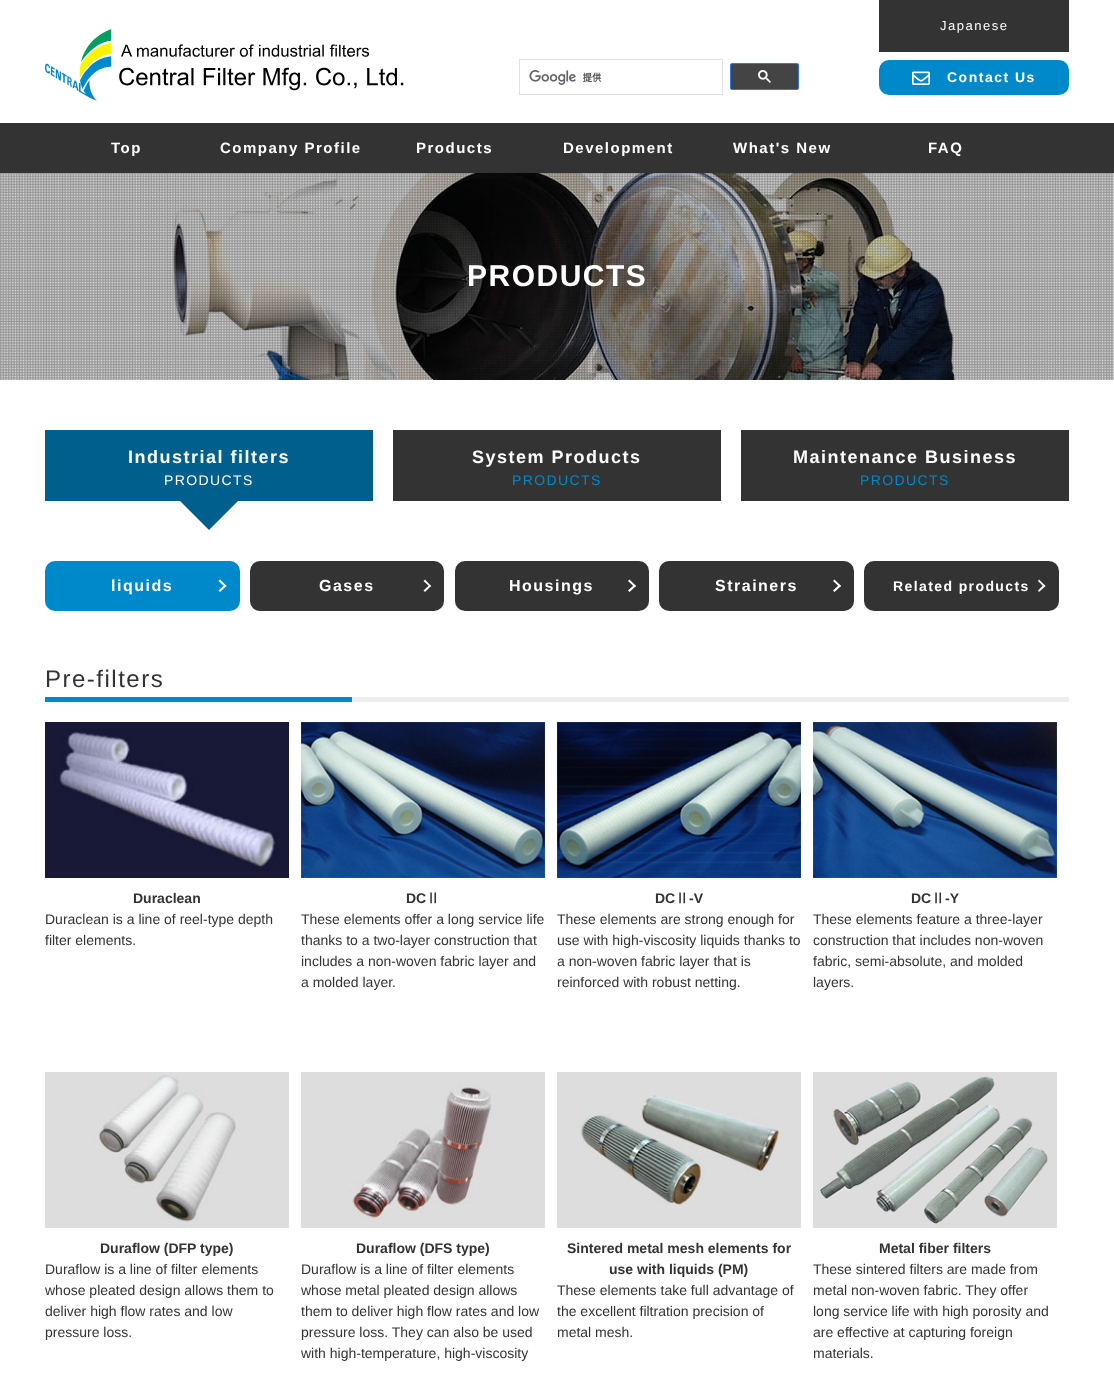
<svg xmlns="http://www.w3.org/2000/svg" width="1114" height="1376">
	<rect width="100%" height="100%" fill="#FFFFFF" />
	<image x="45" y="29" width="359" height="72" href="assets/img1.png" />
	<rect x="519.5" y="59.5" width="203" height="35" fill="none" stroke="#DFE1E5" />
	<image x="529" y="70" width="73" height="15" href="assets/img2.png" />
	<rect x="730.5" y="63.5" width="68" height="26" rx="1.5" fill="#444444" stroke="#3079ED" />
	<image x="758" y="70" width="13" height="13" href="assets/img3.png" />
	<rect x="879" y="0" width="190" height="52" fill="#333333" />
	<text x="940" y="30" font-family="Liberation Sans" font-size="13" letter-spacing="1.5" fill="#FFFFFF">Japanese</text>
	<rect x="879" y="60" width="190" height="35" rx="10" fill="#0089CA" />
	<image x="912" y="71" width="18" height="14" href="assets/img4.png" />
	<text x="947" y="82" font-family="Liberation Sans" font-size="14" font-weight="700" letter-spacing="1.5" fill="#FFFFFF">Contact Us</text>
	<rect x="0" y="123" width="1114" height="50" fill="#333333" />
	<g font-family="Liberation Sans" font-size="15" font-weight="700" letter-spacing="1.5" fill="#FFFFFF">
		<text x="111" y="153">Top</text>
		<text x="220" y="153">Company Profile</text>
		<text x="416" y="153">Products</text>
		<text x="563" y="153">Development</text>
		<text x="733" y="153">What's New</text>
		<text x="928" y="153">FAQ</text>
	</g>
	<image x="0" y="173" width="1114" height="207" href="assets/img5.png" />
	<text x="467" y="286" font-family="Liberation Sans" font-size="30" font-weight="700" letter-spacing="1.5" fill="#FFFFFF">PRODUCTS</text>
	<rect x="45" y="430" width="328" height="71" fill="#005F8C" />
	<text x="128" y="463" font-family="Liberation Sans" font-size="18" font-weight="700" letter-spacing="1.5" fill="#FFFFFF">Industrial filters</text>
	<text x="164" y="485" font-family="Liberation Sans" font-size="14" letter-spacing="1.4" fill="#FFFFFF">PRODUCTS</text>
	<path d="M179 500H239L209 530Z" fill="#005F8C" />
	<rect x="393" y="430" width="328" height="71" fill="#333333" />
	<text x="472" y="463" font-family="Liberation Sans" font-size="18" font-weight="700" letter-spacing="1.5" fill="#FFFFFF">System Products</text>
	<text x="512" y="485" font-family="Liberation Sans" font-size="14" letter-spacing="1.4" fill="#0089CA">PRODUCTS</text>
	<rect x="741" y="430" width="328" height="71" fill="#333333" />
	<text x="793" y="463" font-family="Liberation Sans" font-size="18" font-weight="700" letter-spacing="1.5" fill="#FFFFFF">Maintenance Business</text>
	<text x="860" y="485" font-family="Liberation Sans" font-size="14" letter-spacing="1.4" fill="#0089CA">PRODUCTS</text>
	<rect x="45" y="561" width="195" height="50" rx="10" fill="#0089CA" />
	<text x="111" y="591" font-family="Liberation Sans" font-size="16" font-weight="700" letter-spacing="1.5" fill="#FFFFFF">liquids</text>
	<path d="M220 579.5L226.5 586L225 587L218.5 581Z" fill="#FFFFFF" />
	<path d="M225 584.5L226.5 586L220 592L218.5 590.5Z" fill="#FFFFFF" />
	<rect x="250" y="561" width="194" height="50" rx="10" fill="#333333" />
	<text x="319" y="591" font-family="Liberation Sans" font-size="16" font-weight="700" letter-spacing="1.5" fill="#FFFFFF">Gases</text>
	<path d="M425 579.5L431 586L430 587L423.5 581Z" fill="#FFFFFF" />
	<path d="M430 584.5L431 586L425 592L423.5 590.5Z" fill="#FFFFFF" />
	<rect x="455" y="561" width="194" height="50" rx="10" fill="#333333" />
	<text x="509" y="591" font-family="Liberation Sans" font-size="16" font-weight="700" letter-spacing="1.5" fill="#FFFFFF">Housings</text>
	<path d="M629.5 579.5L636 586L634.5 587L628 581Z" fill="#FFFFFF" />
	<path d="M634.5 584.5L636 586L629.5 592L628 590.5Z" fill="#FFFFFF" />
	<rect x="659" y="561" width="195" height="50" rx="10" fill="#333333" />
	<text x="715" y="591" font-family="Liberation Sans" font-size="16" font-weight="700" letter-spacing="1.5" fill="#FFFFFF">Strainers</text>
	<path d="M834.5 579.5L841 586L839.5 587L833 581Z" fill="#FFFFFF" />
	<path d="M839.5 584.5L841 586L834.5 592L833 590.5Z" fill="#FFFFFF" />
	<rect x="864" y="561" width="195" height="50" rx="10" fill="#333333" />
	<text x="893" y="591" font-family="Liberation Sans" font-size="14" font-weight="700" letter-spacing="1.4" fill="#FFFFFF">Related products</text>
	<path d="M1039 579.5L1045.5 586L1044 587L1038 581Z" fill="#FFFFFF" />
	<path d="M1044 584.5L1045.5 586L1039 592L1038 590.5Z" fill="#FFFFFF" />
	<rect x="352" y="697" width="717" height="5" fill="#EEEEEE" />
	<text x="45" y="687" font-family="Liberation Sans" font-size="24" letter-spacing="1.5" fill="#333333">Pre-filters</text>
	<rect x="45" y="697" width="307" height="5" fill="#0089CA" />
	<image x="45" y="722" width="244" height="156" href="assets/img6.png" />
	<text x="133" y="903" font-family="Liberation Sans" font-size="14" font-weight="700" fill="#333333">Duraclean</text>
	<g font-family="Liberation Sans" font-size="14" fill="#333333">
		<text x="45" y="924">Duraclean is a line of reel-type depth</text>
		<text x="45" y="945">filter elements.</text>
	</g>
	<image x="301" y="722" width="244" height="156" href="assets/img7.png" />
	<text x="406" y="903" font-family="Liberation Sans" font-size="14" font-weight="700" fill="#333333">DC</text>
	<text x="426" y="903" font-family="WenQuanYi Zen Hei" font-size="14" font-weight="700" fill="#333333">Ⅱ</text>
	<g font-family="Liberation Sans" font-size="14" fill="#333333">
		<text x="301" y="924">These elements offer a long service life</text>
		<text x="301" y="945">thanks to a two-layer construction that</text>
		<text x="301" y="966">includes a non-woven fabric layer and</text>
		<text x="301" y="987">a molded layer.</text>
	</g>
	<image x="557" y="722" width="244" height="156" href="assets/img8.png" />
	<text x="655" y="903" font-family="Liberation Sans" font-size="14" font-weight="700" fill="#333333">DC</text>
	<text x="675" y="903" font-family="WenQuanYi Zen Hei" font-size="14" font-weight="700" fill="#333333">Ⅱ</text>
	<text x="689" y="903" font-family="Liberation Sans" font-size="14" font-weight="700" fill="#333333">-V</text>
	<g font-family="Liberation Sans" font-size="14" fill="#333333">
		<text x="557" y="924">These elements are strong enough for</text>
		<text x="557" y="945">use with high-viscosity liquids thanks to</text>
		<text x="557" y="966">a non-woven fabric layer that is</text>
		<text x="557" y="987">reinforced with robust netting.</text>
	</g>
	<image x="813" y="722" width="244" height="156" href="assets/img9.png" />
	<text x="911" y="903" font-family="Liberation Sans" font-size="14" font-weight="700" fill="#333333">DC</text>
	<text x="931" y="903" font-family="WenQuanYi Zen Hei" font-size="14" font-weight="700" fill="#333333">Ⅱ</text>
	<text x="945" y="903" font-family="Liberation Sans" font-size="14" font-weight="700" fill="#333333">-Y</text>
	<g font-family="Liberation Sans" font-size="14" fill="#333333">
		<text x="813" y="924">These elements feature a three-layer</text>
		<text x="813" y="945">construction that includes non-woven</text>
		<text x="813" y="966">fabric, semi-absolute, and molded</text>
		<text x="813" y="987">layers.</text>
	</g>
	<image x="45" y="1072" width="244" height="156" href="assets/img10.png" />
	<text x="100" y="1253" font-family="Liberation Sans" font-size="14" font-weight="700" fill="#333333">Duraflow (DFP type)</text>
	<g font-family="Liberation Sans" font-size="14" fill="#333333">
		<text x="45" y="1274">Duraflow is a line of filter elements</text>
		<text x="45" y="1295">whose pleated design allows them to</text>
		<text x="45" y="1316">deliver high flow rates and low</text>
		<text x="45" y="1337">pressure loss.</text>
	</g>
	<image x="301" y="1072" width="244" height="156" href="assets/img11.png" />
	<text x="356" y="1253" font-family="Liberation Sans" font-size="14" font-weight="700" fill="#333333">Duraflow (DFS type)</text>
	<g font-family="Liberation Sans" font-size="14" fill="#333333">
		<text x="301" y="1274">Duraflow is a line of filter elements</text>
		<text x="301" y="1295">whose metal pleated design allows</text>
		<text x="301" y="1316">them to deliver high flow rates and low</text>
		<text x="301" y="1337">pressure loss. They can also be used</text>
		<text x="301" y="1358">with high-temperature, high-viscosity</text>
	</g>
	<image x="557" y="1072" width="244" height="156" href="assets/img12.png" />
	<g font-family="Liberation Sans" font-size="14" font-weight="700" fill="#333333">
		<text x="567" y="1253">Sintered metal mesh elements for</text>
		<text x="609" y="1274">use with liquids (PM)</text>
	</g>
	<g font-family="Liberation Sans" font-size="14" fill="#333333">
		<text x="557" y="1295">These elements take full advantage of</text>
		<text x="557" y="1316">the excellent filtration precision of</text>
		<text x="557" y="1337">metal mesh.</text>
	</g>
	<image x="813" y="1072" width="244" height="156" href="assets/img13.png" />
	<text x="879" y="1253" font-family="Liberation Sans" font-size="14" font-weight="700" fill="#333333">Metal fiber filters</text>
	<g font-family="Liberation Sans" font-size="14" fill="#333333">
		<text x="813" y="1274">These sintered filters are made from</text>
		<text x="813" y="1295">metal non-woven fabric. They offer</text>
		<text x="813" y="1316">long service life with high porosity and</text>
		<text x="813" y="1337">are effective at capturing foreign</text>
		<text x="813" y="1358">materials.</text>
	</g>
</svg>
